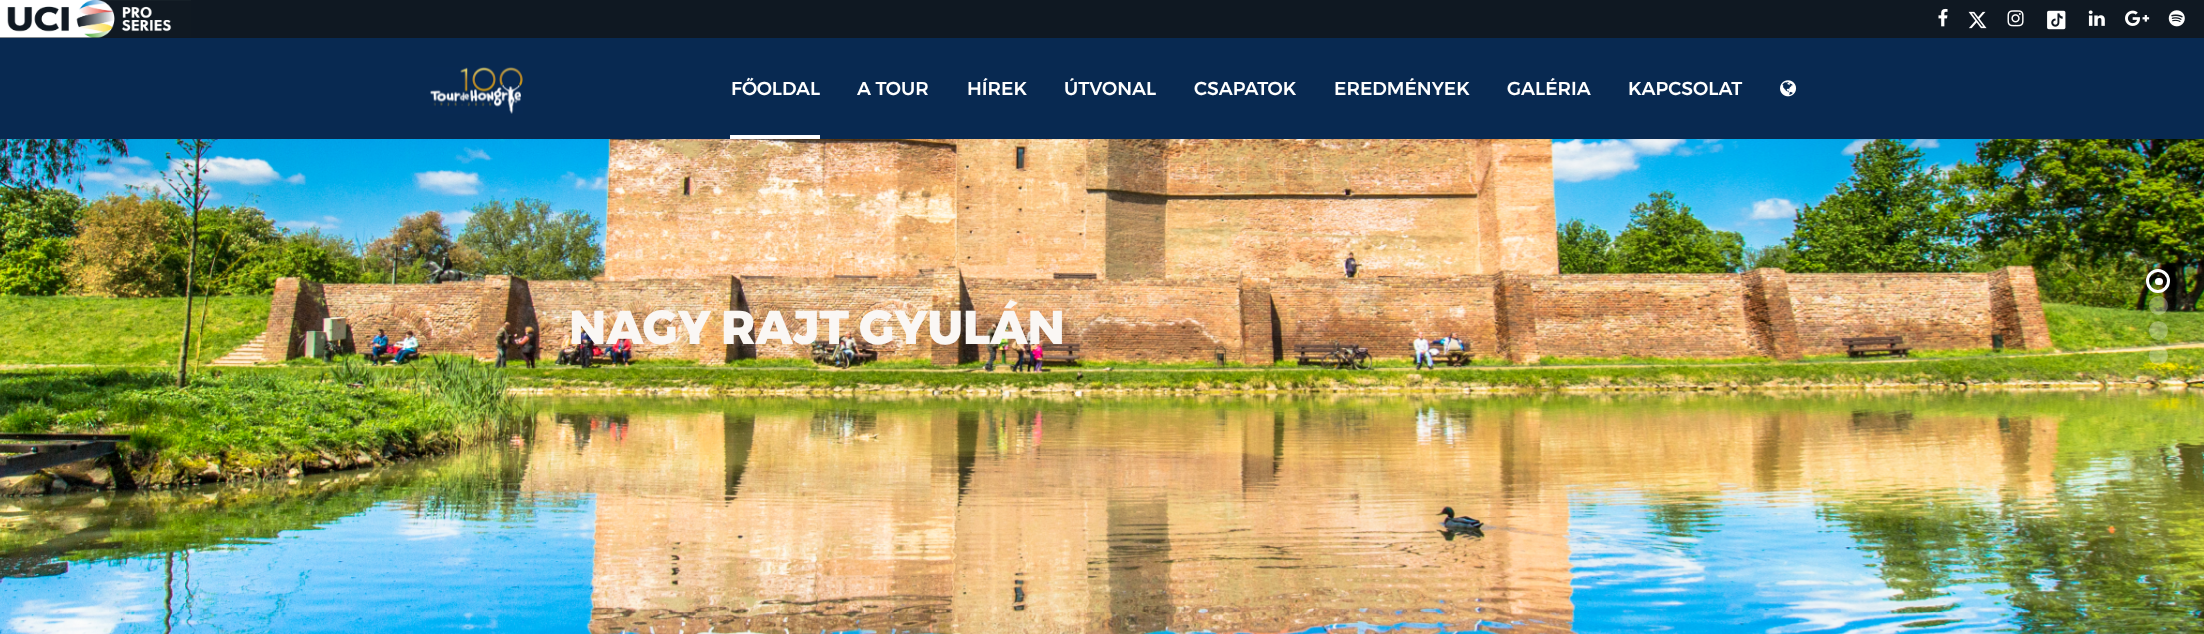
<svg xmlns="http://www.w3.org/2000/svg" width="2204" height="634">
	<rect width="100%" height="100%" fill="#FFFFFF" />
	<rect x="0" y="38" width="2204" height="101" fill="#082951" />
	<rect x="0" y="0" width="2204" height="38" fill="#0F1822" />
	<image x="0" y="0" width="191" height="38" href="assets/img1.png" />
	<image x="1938" y="8" width="10" height="19" href="assets/img2.png" />
	<image x="1968" y="11" width="19" height="18" href="assets/img3.png" />
	<image x="2007" y="10" width="17" height="17" href="assets/img4.png" />
	<image x="2047" y="10" width="19" height="20" href="assets/img5.png" />
	<image x="2088" y="10" width="17" height="16" href="assets/img6.png" />
	<image x="2125" y="10" width="25" height="16" href="assets/img7.png" />
	<image x="2168" y="10" width="17" height="17" href="assets/img8.png" />
	<image x="430" y="67" width="93" height="47" href="assets/img9.png" />
	<text x="731" y="95" font-family="Montserrat" font-size="18.75" font-weight="500" fill="#FFFFFF">FŐOLDAL</text>
	<rect x="730" y="135" width="90" height="4" fill="#FFFFFF" />
	<g font-family="Montserrat" font-size="18.75" font-weight="500" fill="#FFFFFF">
		<text x="857" y="95">A TOUR</text>
		<text x="967" y="95">HÍREK</text>
		<text x="1064" y="95">ÚTVONAL</text>
		<text x="1194" y="95">CSAPATOK</text>
		<text x="1334" y="95">EREDMÉNYEK</text>
		<text x="1507" y="95">GALÉRIA</text>
		<text x="1628" y="95">KAPCSOLAT</text>
	</g>
	<image x="1780" y="80" width="17" height="17" href="assets/img10.png" />
	<image x="0" y="139" width="2204" height="495" href="assets/img11.png" />
	<text x="569" y="344" font-family="Montserrat" font-size="47.5" font-weight="800" fill="#FAF7F4">NAGY RAJT GYULÁN</text>
	<circle cx="2158" cy="281" r="10.5" fill="none" stroke="#FFFFFF" stroke-width="3" />
	<rect x="2155" y="278" width="8" height="7" rx="3.5" fill="#FFFFFF" />
	<circle cx="2158.5" cy="305.5" r="9.5" fill="#FFFFFF" fill-opacity="0.3" />
	<circle cx="2158.5" cy="330.5" r="9.5" fill="#FFFFFF" fill-opacity="0.3" />
	<circle cx="2158.5" cy="355.5" r="9.5" fill="#FFFFFF" fill-opacity="0.3" />
</svg>
